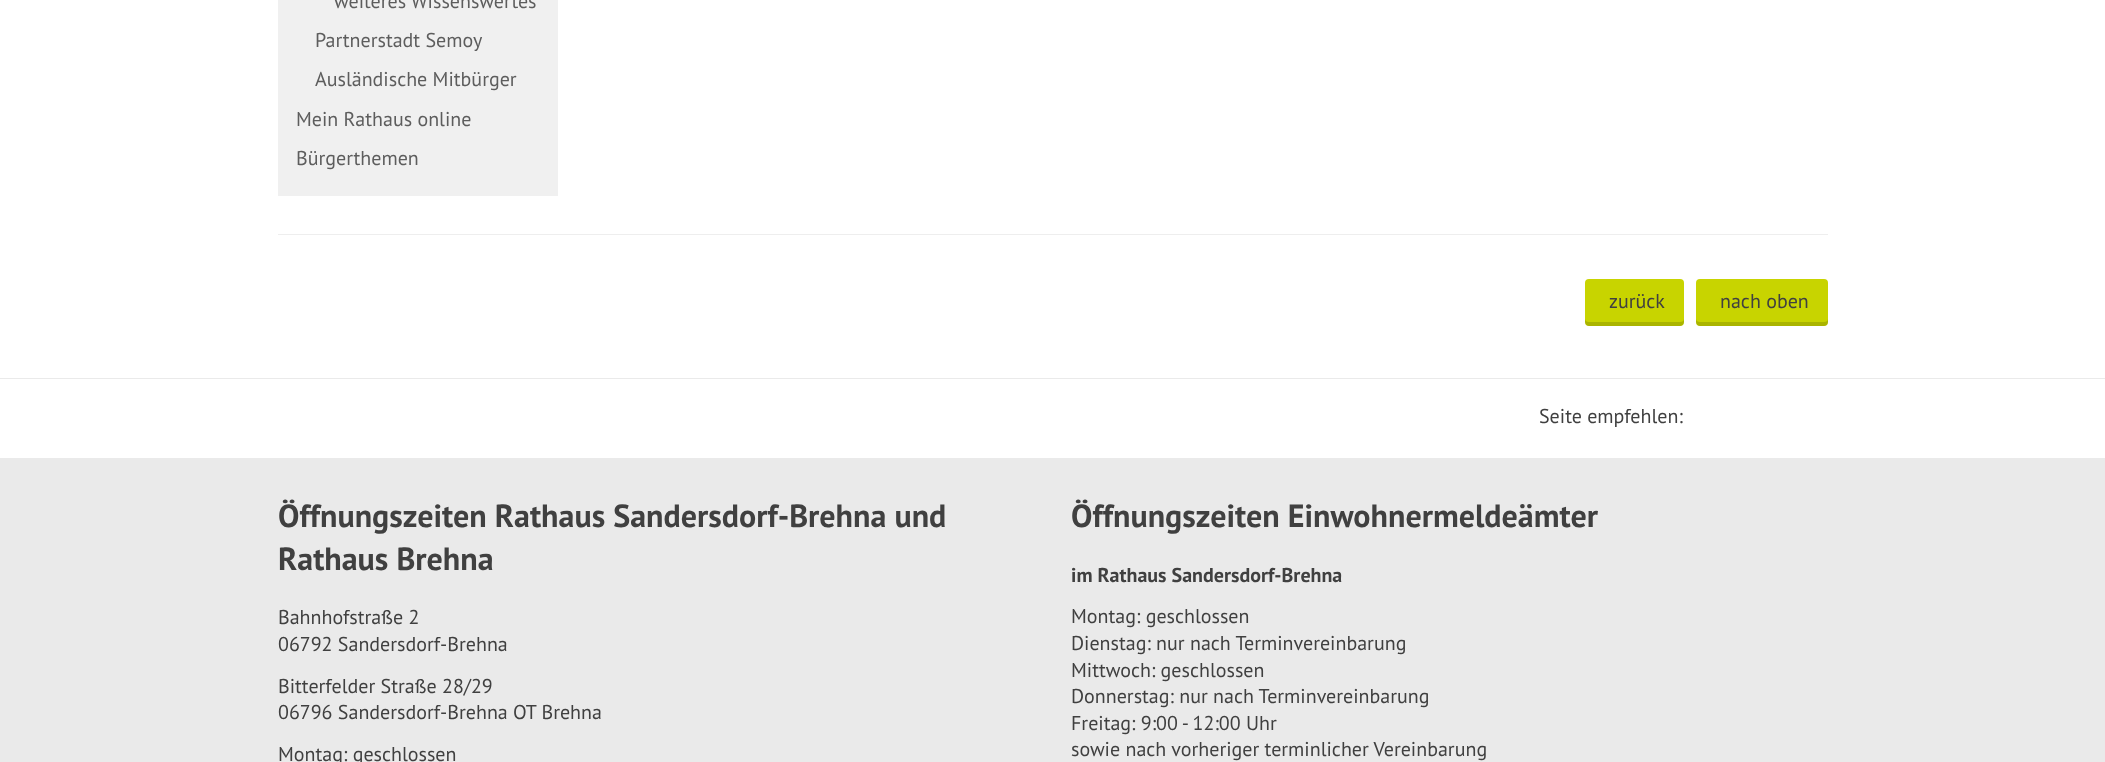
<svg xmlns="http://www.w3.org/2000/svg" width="2105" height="762">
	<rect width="100%" height="100%" fill="#FFFFFF" />
	<rect x="278" y="0" width="280" height="196" fill="#F0F0F0" />
	<g font-family="PT Sans" font-size="20" fill="#5D5D5D">
		<text x="334" y="8">weiteres Wissenswertes</text>
		<text x="315" y="47">Partnerstadt Semoy</text>
		<text x="315" y="86">Ausländische Mitbürger</text>
		<text x="296" y="126">Mein Rathaus online</text>
		<text x="296" y="165">Bürgerthemen</text>
	</g>
	<rect x="278" y="234" width="1550" height="1" fill="#EEEEEE" />
	<rect x="1585" y="279" width="99" height="47" rx="4" fill="#C8D400" />
	<path d="M1585 319V322C1585 324 1587 326 1589 326H1680C1682 326 1684 324 1684 322V319C1684 321 1682 322 1680 322H1589C1587 322 1585 321 1585 319Z" fill="#000000" fill-opacity="0.15" />
	<text x="1609" y="308" font-family="PT Sans" font-size="20" fill="#404040">zurück</text>
	<rect x="1696" y="279" width="132" height="47" rx="4" fill="#C8D400" />
	<path d="M1696 319V322C1696 324 1698 326 1700 326H1824C1826 326 1828 324 1828 322V319C1828 321 1826 322 1824 322H1700C1698 322 1696 321 1696 319Z" fill="#000000" fill-opacity="0.15" />
	<text x="1720" y="308" font-family="PT Sans" font-size="20" fill="#404040">nach oben</text>
	<rect x="0" y="378" width="2105" height="1" fill="#EAEAEA" />
	<text x="1539" y="423" font-family="PT Sans" font-size="20" fill="#404040">Seite empfehlen:</text>
	<rect x="0" y="458" width="2105" height="304" fill="#EAEAEA" />
	<g font-family="PT Sans" font-size="32" font-weight="700" fill="#404040">
		<text x="278" y="527">Öffnungszeiten Rathaus Sandersdorf-Brehna und</text>
		<text x="278" y="570">Rathaus Brehna</text>
	</g>
	<g font-family="PT Sans" font-size="20" fill="#404040">
		<text x="278" y="624">Bahnhofstraße 2</text>
		<text x="278" y="651">06792 Sandersdorf-Brehna</text>
		<text x="278" y="693">Bitterfelder Straße 28/29</text>
		<text x="278" y="719">06796 Sandersdorf-Brehna OT Brehna</text>
		<text x="278" y="761">Montag: geschlossen</text>
	</g>
	<text x="1071" y="527" font-family="PT Sans" font-size="32" font-weight="700" fill="#404040">Öffnungszeiten Einwohnermeldeämter</text>
	<text x="1071" y="582" font-family="PT Sans" font-size="20" font-weight="700" fill="#404040">im Rathaus Sandersdorf-Brehna</text>
	<g font-family="PT Sans" font-size="20" fill="#404040">
		<text x="1071" y="623">Montag: geschlossen</text>
		<text x="1071" y="650">Dienstag: nur nach Terminvereinbarung</text>
		<text x="1071" y="677">Mittwoch: geschlossen</text>
		<text x="1071" y="703">Donnerstag: nur nach Terminvereinbarung</text>
		<text x="1071" y="730">Freitag: 9:00 - 12:00 Uhr</text>
		<text x="1071" y="756">sowie nach vorheriger terminlicher Vereinbarung</text>
	</g>
</svg>
